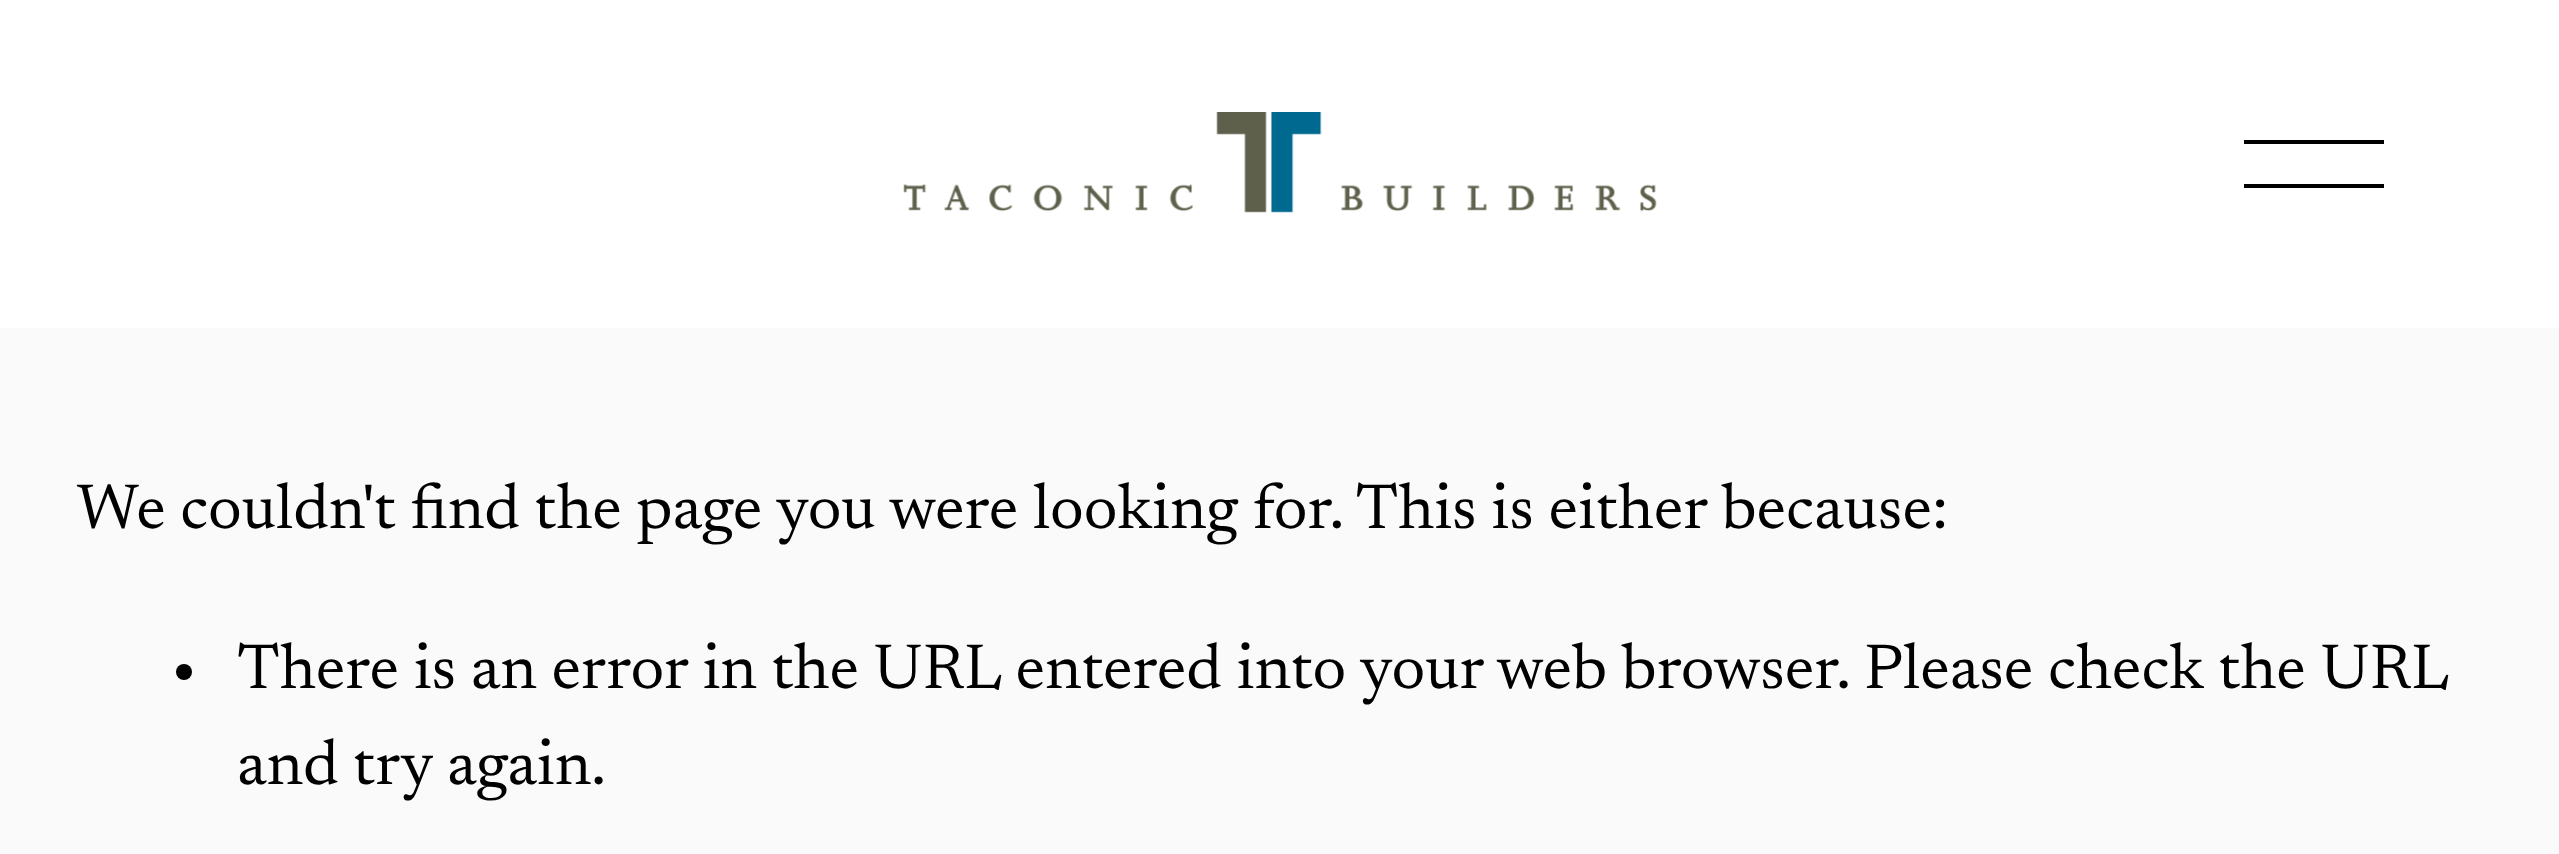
<svg xmlns="http://www.w3.org/2000/svg" width="2559" height="854">
	<rect width="100%" height="100%" fill="#FAFAFA" />
	<rect x="0" y="0" width="2559" height="328" fill="#FFFFFF" />
	<image x="903" y="112" width="754" height="101" href="assets/img1.png" />
	<rect x="2244" y="140" width="140" height="4" fill="#000000" />
	<rect x="2244" y="184" width="140" height="4" fill="#000000" />
	<text x="77" y="528" font-family="Newsreader" font-size="64" fill="#000000">We couldn't find the page you were looking for. This is either because:</text>
	<circle cx="184" cy="672" r="8" fill="#000000" />
	<g font-family="Newsreader" font-size="64" fill="#000000">
		<text x="237" y="688">There is an error in the URL entered into your web browser. Please check the URL</text>
		<text x="237" y="784">and try again.</text>
	</g>
</svg>
